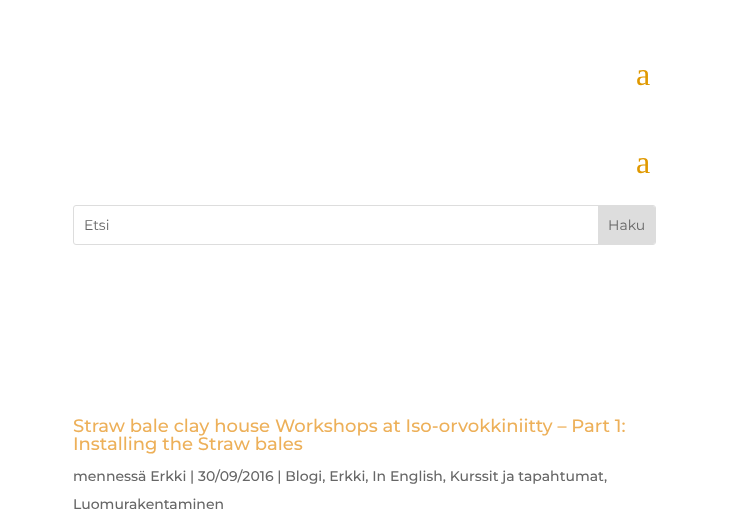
<svg xmlns="http://www.w3.org/2000/svg" width="729" height="516">
	<rect width="100%" height="100%" fill="#FFFFFF" />
	<g font-family="Liberation Serif" font-size="32" fill="#E09900">
		<text x="636" y="85">a</text>
		<text x="636" y="173">a</text>
	</g>
	<rect x="73.5" y="205.5" width="582" height="39" rx="2.5" fill="none" stroke="#DDDDDD" />
	<text x="84" y="230" font-family="Montserrat" font-size="14" fill="#666666">Etsi</text>
	<path d="M598 206H653C654 206 655 207 655 208V242C655 243 654 244 653 244H598Z" fill="#DDDDDD" />
	<text x="608" y="230" font-family="Montserrat" font-size="14" fill="#666666">Haku</text>
	<g font-family="Montserrat" font-size="18" font-weight="500" fill="#EDB059">
		<text x="73" y="432">Straw bale clay house Workshops at Iso-orvokkiniitty – Part 1:</text>
		<text x="73" y="450">Installing the Straw bales</text>
	</g>
	<g font-family="Montserrat" font-size="14" font-weight="500" fill="#666666">
		<text x="73" y="481">mennessä Erkki | 30/09/2016 | Blogi, Erkki, In English, Kurssit ja tapahtumat,</text>
		<text x="73" y="509">Luomurakentaminen</text>
	</g>
</svg>
